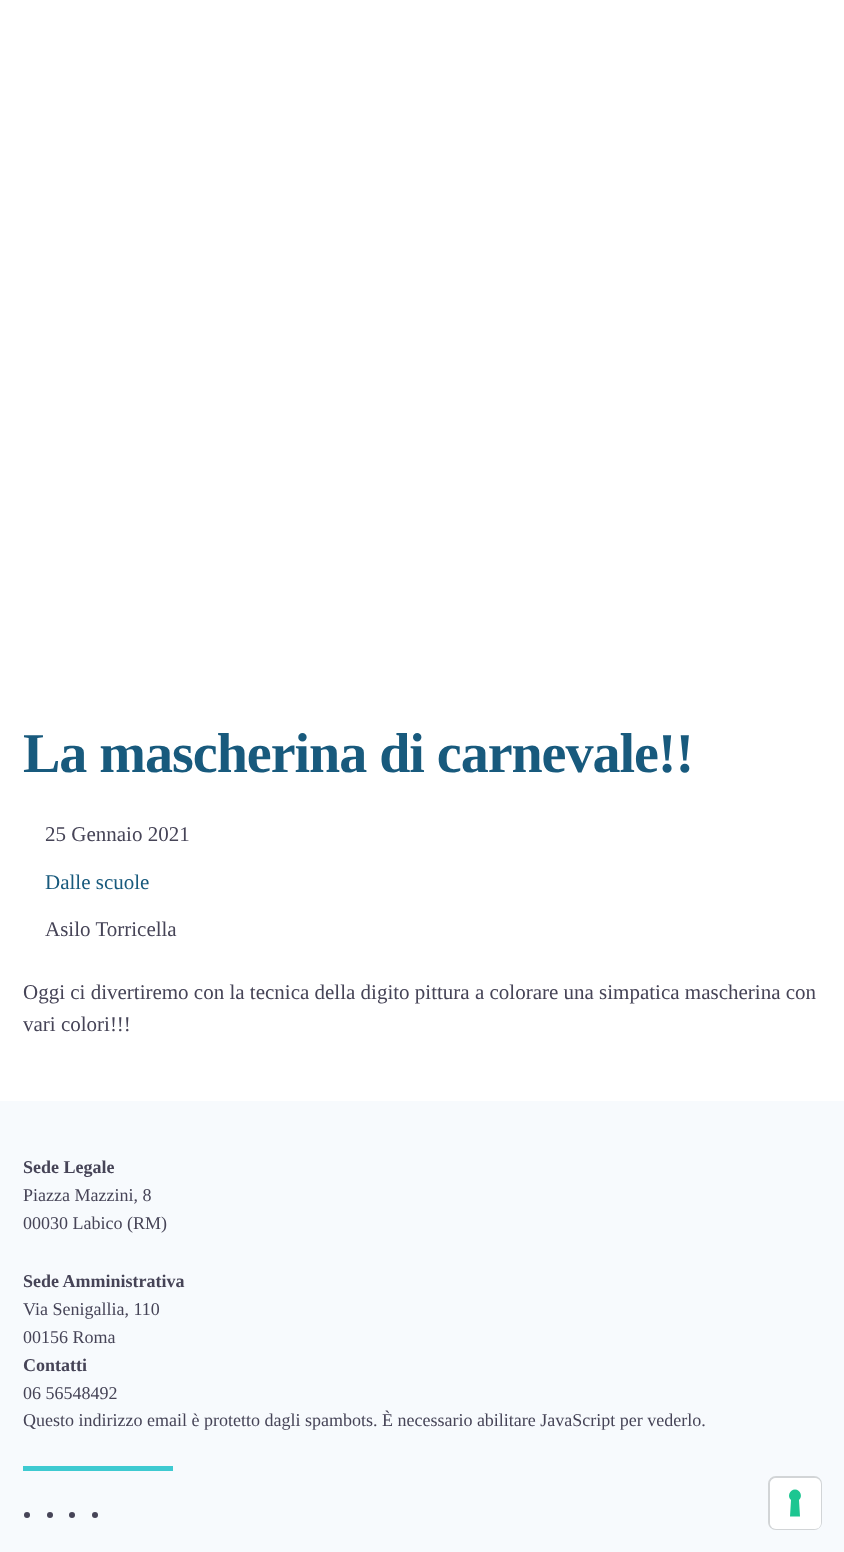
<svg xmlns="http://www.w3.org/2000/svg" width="844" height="1552">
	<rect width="100%" height="100%" fill="#FFFFFF" />
	<text x="23" y="772" font-family="Liberation Serif" font-size="56.1" font-weight="700" letter-spacing="-1.05" fill="#185A7D">La mascherina di carnevale!!</text>
	<text x="45" y="841" font-family="Liberation Serif" font-size="21" fill="#464457">25 Gennaio 2021</text>
	<text x="45" y="889" font-family="Liberation Serif" font-size="21" fill="#185A7D">Dalle scuole</text>
	<g font-family="Liberation Serif" font-size="21" fill="#464457">
		<text x="45" y="936">Asilo Torricella</text>
		<text x="23" y="999">Oggi ci divertiremo con la tecnica della digito pittura a colorare una simpatica mascherina con</text>
		<text x="23" y="1031">vari colori!!!</text>
	</g>
	<rect x="0" y="1101" width="844" height="451" fill="#F7FAFD" />
	<text x="23" y="1173" font-family="Liberation Serif" font-size="18" font-weight="700" fill="#464457">Sede Legale</text>
	<g font-family="Liberation Serif" font-size="18" fill="#464457">
		<text x="23" y="1201">Piazza Mazzini, 8</text>
		<text x="23" y="1229">00030 Labico (RM)</text>
	</g>
	<text x="23" y="1287" font-family="Liberation Serif" font-size="18" font-weight="700" fill="#464457">Sede Amministrativa</text>
	<g font-family="Liberation Serif" font-size="18" fill="#464457">
		<text x="23" y="1315">Via Senigallia, 110</text>
		<text x="23" y="1343">00156 Roma</text>
	</g>
	<text x="23" y="1371" font-family="Liberation Serif" font-size="18" font-weight="700" fill="#464457">Contatti</text>
	<g font-family="Liberation Serif" font-size="18" fill="#464457">
		<text x="23" y="1399">06 56548492</text>
		<text x="23" y="1426">Questo indirizzo email è protetto dagli spambots. È necessario abilitare JavaScript per vederlo.</text>
	</g>
	<rect x="23" y="1466" width="150" height="5" fill="#3ECAD1" />
	<circle cx="27" cy="1515" r="3" fill="#464457" />
	<circle cx="50" cy="1515" r="3" fill="#464457" />
	<circle cx="72" cy="1515" r="3" fill="#464457" />
	<circle cx="95" cy="1515" r="3" fill="#464457" />
	<rect x="769" y="1477" width="52" height="52" rx="7" fill="none" stroke="#D2D5D7" stroke-width="2" />
	<rect x="770" y="1478" width="51" height="51" rx="6" fill="#FFFFFF" />
	<path d="M795 1489.5C800.5 1489.5 803 1496.5 799 1500L800 1516.5H790L791 1500C787 1496.5 789.5 1489.5 795 1489.5Z" fill="#1CC691" fill-rule="evenodd" />
</svg>
